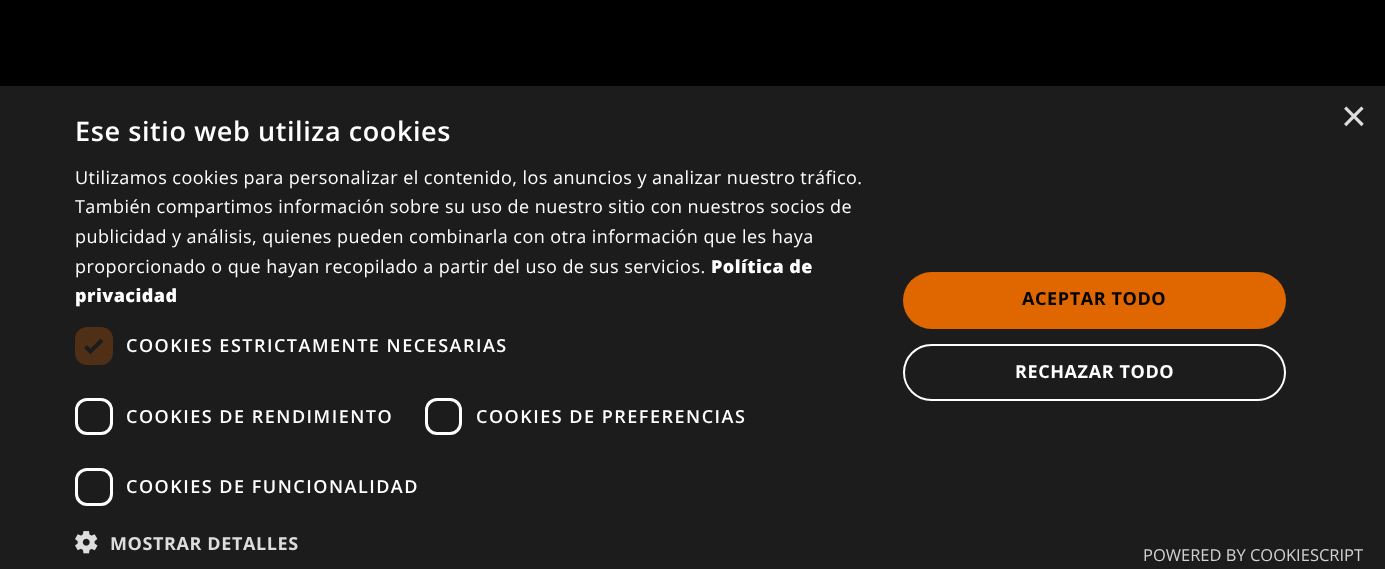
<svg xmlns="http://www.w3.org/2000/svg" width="1385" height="569">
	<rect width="100%" height="100%" fill="#000000" />
	<rect x="0" y="86" width="1385" height="483" fill="#1C1C1C" />
	<text x="1341" y="131" font-family="Liberation Sans" font-size="44" fill="#DDDDDD">×</text>
	<text x="75" y="141" font-family="Open Sans" font-size="27" font-weight="600" letter-spacing="0.6" fill="#FFFFFF">Ese sitio web utiliza cookies</text>
	<g font-family="Open Sans" font-size="18" letter-spacing="0.45" fill="#FFFFFF">
		<text x="75" y="184">Utilizamos cookies para personalizar el contenido, los anuncios y analizar nuestro tráfico.</text>
		<text x="75" y="213">También compartimos información sobre su uso de nuestro sitio con nuestros socios de</text>
		<text x="75" y="243">publicidad y análisis, quienes pueden combinarla con otra información que les haya</text>
		<text x="75" y="273">proporcionado o que hayan recopilado a partir del uso de sus servicios.</text>
	</g>
	<g font-family="Open Sans" font-size="18" font-weight="800" letter-spacing="0.45" fill="#FFFFFF">
		<text x="711" y="273">Política de</text>
		<text x="75" y="302">privacidad</text>
	</g>
	<rect x="75" y="327" width="38" height="38" rx="12" fill="#4F2F15" />
	<path d="M85.5 346.5L90.5 351.5L102 340" fill="none" stroke="#1C1C1C" stroke-width="3.9" />
	<text x="126" y="352" font-family="Open Sans" font-size="18" font-weight="600" letter-spacing="1.5" fill="#FFFFFF">COOKIES ESTRICTAMENTE NECESARIAS</text>
	<rect x="76.5" y="399.5" width="35" height="34" rx="10.5" fill="none" stroke="#FFFFFF" stroke-width="3" />
	<text x="126" y="423" font-family="Open Sans" font-size="18" font-weight="600" letter-spacing="1.5" fill="#FFFFFF">COOKIES DE RENDIMIENTO</text>
	<rect x="426.5" y="399.5" width="34" height="34" rx="10.5" fill="none" stroke="#FFFFFF" stroke-width="3" />
	<text x="476" y="423" font-family="Open Sans" font-size="18" font-weight="600" letter-spacing="1.5" fill="#FFFFFF">COOKIES DE PREFERENCIAS</text>
	<rect x="76.5" y="469.5" width="35" height="35" rx="10.5" fill="none" stroke="#FFFFFF" stroke-width="3" />
	<text x="126" y="493" font-family="Open Sans" font-size="18" font-weight="600" letter-spacing="1.5" fill="#FFFFFF">COOKIES DE FUNCIONALIDAD</text>
	<image x="75" y="531" width="23" height="23" href="assets/img1.png" />
	<text x="110" y="550" font-family="Open Sans" font-size="18" font-weight="700" letter-spacing="0.6" fill="#DDDDDD">MOSTRAR DETALLES</text>
	<rect x="903" y="272" width="383" height="57" rx="28.5" fill="#E06600" />
	<text x="1022" y="305" font-family="Open Sans" font-size="18" font-weight="700" letter-spacing="0.6" fill="#000000">ACEPTAR TODO</text>
	<rect x="904" y="345" width="381" height="55" rx="27.5" fill="none" stroke="#FFFFFF" stroke-width="2" />
	<text x="1015" y="378" font-family="Open Sans" font-size="18" font-weight="700" letter-spacing="0.6" fill="#FFFFFF">RECHAZAR TODO</text>
	<text x="1143" y="561" font-family="Open Sans" font-size="16.5" fill="#D2D2D2">POWERED BY COOKIESCRIPT</text>
</svg>
